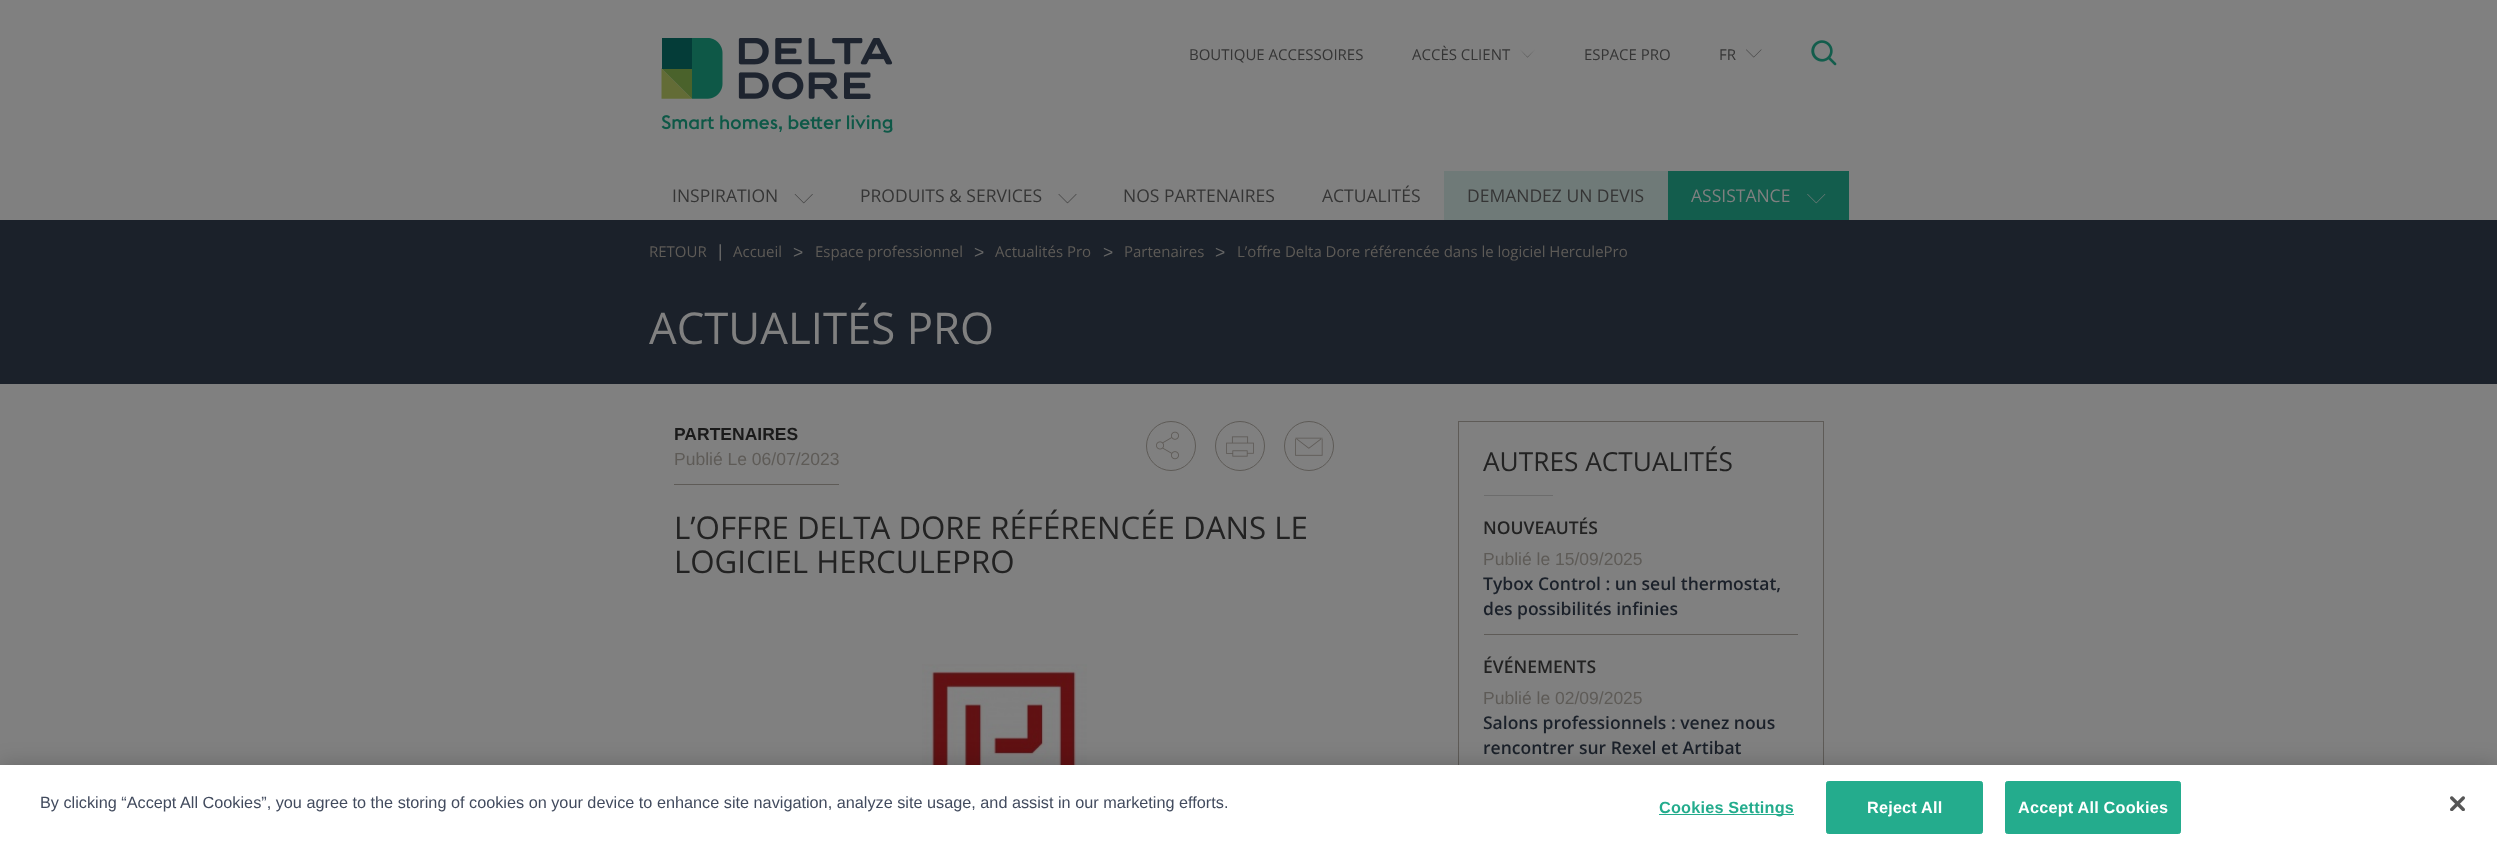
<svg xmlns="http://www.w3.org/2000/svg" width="2497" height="846">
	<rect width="100%" height="100%" fill="#808080" />
	<image x="661" y="38" width="232" height="95" href="assets/img1.png" />
	<g font-family="Open Sans" font-size="15" fill="#353535">
		<text x="1189" y="60">BOUTIQUE ACCESSOIRES</text>
		<text x="1412" y="60">ACCÈS CLIENT</text>
	</g>
	<path d="M1527.5 57.5L1520 49.5L1527.5 57L1535 49.5Z" fill="#353535" />
	<g font-family="Open Sans" font-size="15" fill="#353535">
		<text x="1584" y="60">ESPACE PRO</text>
		<text x="1719" y="60">FR</text>
	</g>
	<image x="1746" y="49" width="16" height="9" href="assets/img2.png" />
	<image x="1811" y="40" width="26" height="26" href="assets/img3.png" />
	<text x="672" y="202" font-family="Open Sans" font-size="17.5" fill="#353535">INSPIRATION</text>
	<image x="794" y="194" width="19" height="10" href="assets/img4.png" />
	<text x="860" y="202" font-family="Open Sans" font-size="17.5" fill="#353535">PRODUITS &amp; SERVICES</text>
	<image x="1058" y="194" width="19" height="10" href="assets/img5.png" />
	<g font-family="Open Sans" font-size="17.5" fill="#353535">
		<text x="1123" y="202">NOS PARTENAIRES</text>
		<text x="1322" y="202">ACTUALITÉS</text>
	</g>
	<rect x="1444" y="171" width="224" height="49" fill="#6F7A78" />
	<text x="1467" y="202" font-family="Open Sans" font-size="17.5" fill="#353535">DEMANDEZ UN DEVIS</text>
	<rect x="1668" y="171" width="181" height="49" fill="#135D4D" />
	<text x="1691" y="202" font-family="Open Sans" font-size="17.5" fill="#808080">ASSISTANCE</text>
	<image x="1807" y="194" width="19" height="10" href="assets/img6.png" />
	<rect x="0" y="220" width="2497" height="164" fill="#1B212A" />
	<text x="649" y="257" font-family="Open Sans" font-size="15" fill="#5E5B57">RETOUR</text>
	<text x="718" y="257" font-family="Liberation Sans" font-size="17.5" fill="#666666">|</text>
	<text x="733" y="257" font-family="Open Sans" font-size="15" fill="#5E5B57">Accueil</text>
	<text x="793" y="258" font-family="Liberation Sans" font-size="17.5" fill="#666666">&gt;</text>
	<text x="815" y="257" font-family="Open Sans" font-size="15" fill="#5E5B57">Espace professionnel</text>
	<text x="974" y="258" font-family="Liberation Sans" font-size="17.5" fill="#666666">&gt;</text>
	<text x="995" y="257" font-family="Open Sans" font-size="15" fill="#5E5B57">Actualités Pro</text>
	<text x="1103" y="258" font-family="Liberation Sans" font-size="17.5" fill="#666666">&gt;</text>
	<text x="1124" y="257" font-family="Open Sans" font-size="15" fill="#5E5B57">Partenaires</text>
	<text x="1215" y="258" font-family="Liberation Sans" font-size="17.5" fill="#666666">&gt;</text>
	<text x="1237" y="257" font-family="Open Sans" font-size="15" fill="#5E5B57">L’offre Delta Dore référencée dans le logiciel HerculePro</text>
	<text x="649" y="344" font-family="Open Sans" font-size="43.75" fill="#808080">ACTUALITÉS PRO</text>
	<rect x="674" y="484" width="165" height="1" fill="#5E5B57" />
	<text x="674" y="440" font-family="Liberation Sans" font-size="17.5" font-weight="700" fill="#1A1A1A">PARTENAIRES</text>
	<text x="674" y="465" font-family="Liberation Sans" font-size="17.5" fill="#5E5B57">Publié Le 06/07/2023</text>
	<circle cx="1171" cy="446" r="24.5" fill="none" stroke="#5E5B57" />
	<image x="1156" y="431" width="23" height="29" href="assets/img7.png" />
	<circle cx="1240" cy="446" r="24.5" fill="none" stroke="#5E5B57" />
	<image x="1226" y="436" width="28" height="21" href="assets/img8.png" />
	<circle cx="1309" cy="446" r="24.5" fill="none" stroke="#5E5B57" />
	<image x="1295" y="437" width="28" height="19" href="assets/img9.png" />
	<g font-family="Open Sans" font-size="31.25" fill="#222222">
		<text x="674" y="539">L’OFFRE DELTA DORE RÉFÉRENCÉE DANS LE</text>
		<text x="674" y="573">LOGICIEL HERCULEPRO</text>
	</g>
	<image x="922" y="664" width="165" height="101" href="assets/img10.png" />
	<rect x="1458.5" y="421.5" width="365" height="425" fill="none" stroke="#5E5B57" />
	<text x="1483" y="471" font-family="Open Sans" font-size="26.25" fill="#222222">AUTRES ACTUALITÉS</text>
	<rect x="1484" y="495" width="69" height="1" fill="#6C6C6C" />
	<rect x="1484" y="634" width="314" height="1" fill="#5E5B57" />
	<text x="1483" y="534" font-family="Open Sans" font-size="17.5" font-weight="600" fill="#222222">NOUVEAUTÉS</text>
	<text x="1483" y="565" font-family="Liberation Sans" font-size="17.5" fill="#5E5B57">Publié le 15/09/2025</text>
	<g font-family="Open Sans" font-size="17.5" font-weight="600" fill="#1B212A">
		<text x="1483" y="590">Tybox Control : un seul thermostat,</text>
		<text x="1483" y="615">des possibilités infinies</text>
	</g>
	<text x="1483" y="673" font-family="Open Sans" font-size="17.5" font-weight="600" fill="#222222">ÉVÉNEMENTS</text>
	<text x="1483" y="704" font-family="Liberation Sans" font-size="17.5" fill="#5E5B57">Publié le 02/09/2025</text>
	<g font-family="Open Sans" font-size="17.5" font-weight="600" fill="#1B212A">
		<text x="1483" y="729">Salons professionnels : venez nous</text>
		<text x="1483" y="754">rencontrer sur Rexel et Artibat</text>
	</g>
	<rect x="0" y="765" width="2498" height="81" fill="#000000" fill-opacity="0.2" filter="blur(11px)" />
	<rect x="0" y="765" width="2497" height="81" fill="#FFFFFF" />
	<text x="40" y="808" font-family="Liberation Sans" font-size="16.25" fill="#424B5E">By clicking “Accept All Cookies”, you agree to the storing of cookies on your device to enhance site navigation, analyze site usage, and assist in our marketing efforts.</text>
	<rect x="1659" y="814" width="135" height="1" fill="#24AC8D" />
	<text x="1659" y="813" font-family="Liberation Sans" font-size="16.25" font-weight="700" letter-spacing="0.2" fill="#24AC8D">Cookies Settings</text>
	<rect x="1826.5" y="781.5" width="156" height="52" rx="2" fill="#24AC8D" stroke="#24AC8D" />
	<text x="1867" y="813" font-family="Liberation Sans" font-size="16.25" font-weight="700" letter-spacing="0.2" fill="#FFFFFF">Reject All</text>
	<rect x="2005.5" y="781.5" width="175" height="52" rx="2" fill="#24AC8D" stroke="#24AC8D" />
	<text x="2018" y="813" font-family="Liberation Sans" font-size="16.25" font-weight="700" letter-spacing="0.2" fill="#FFFFFF">Accept All Cookies</text>
	<image x="2450" y="796" width="15" height="15" href="assets/img11.png" />
</svg>
